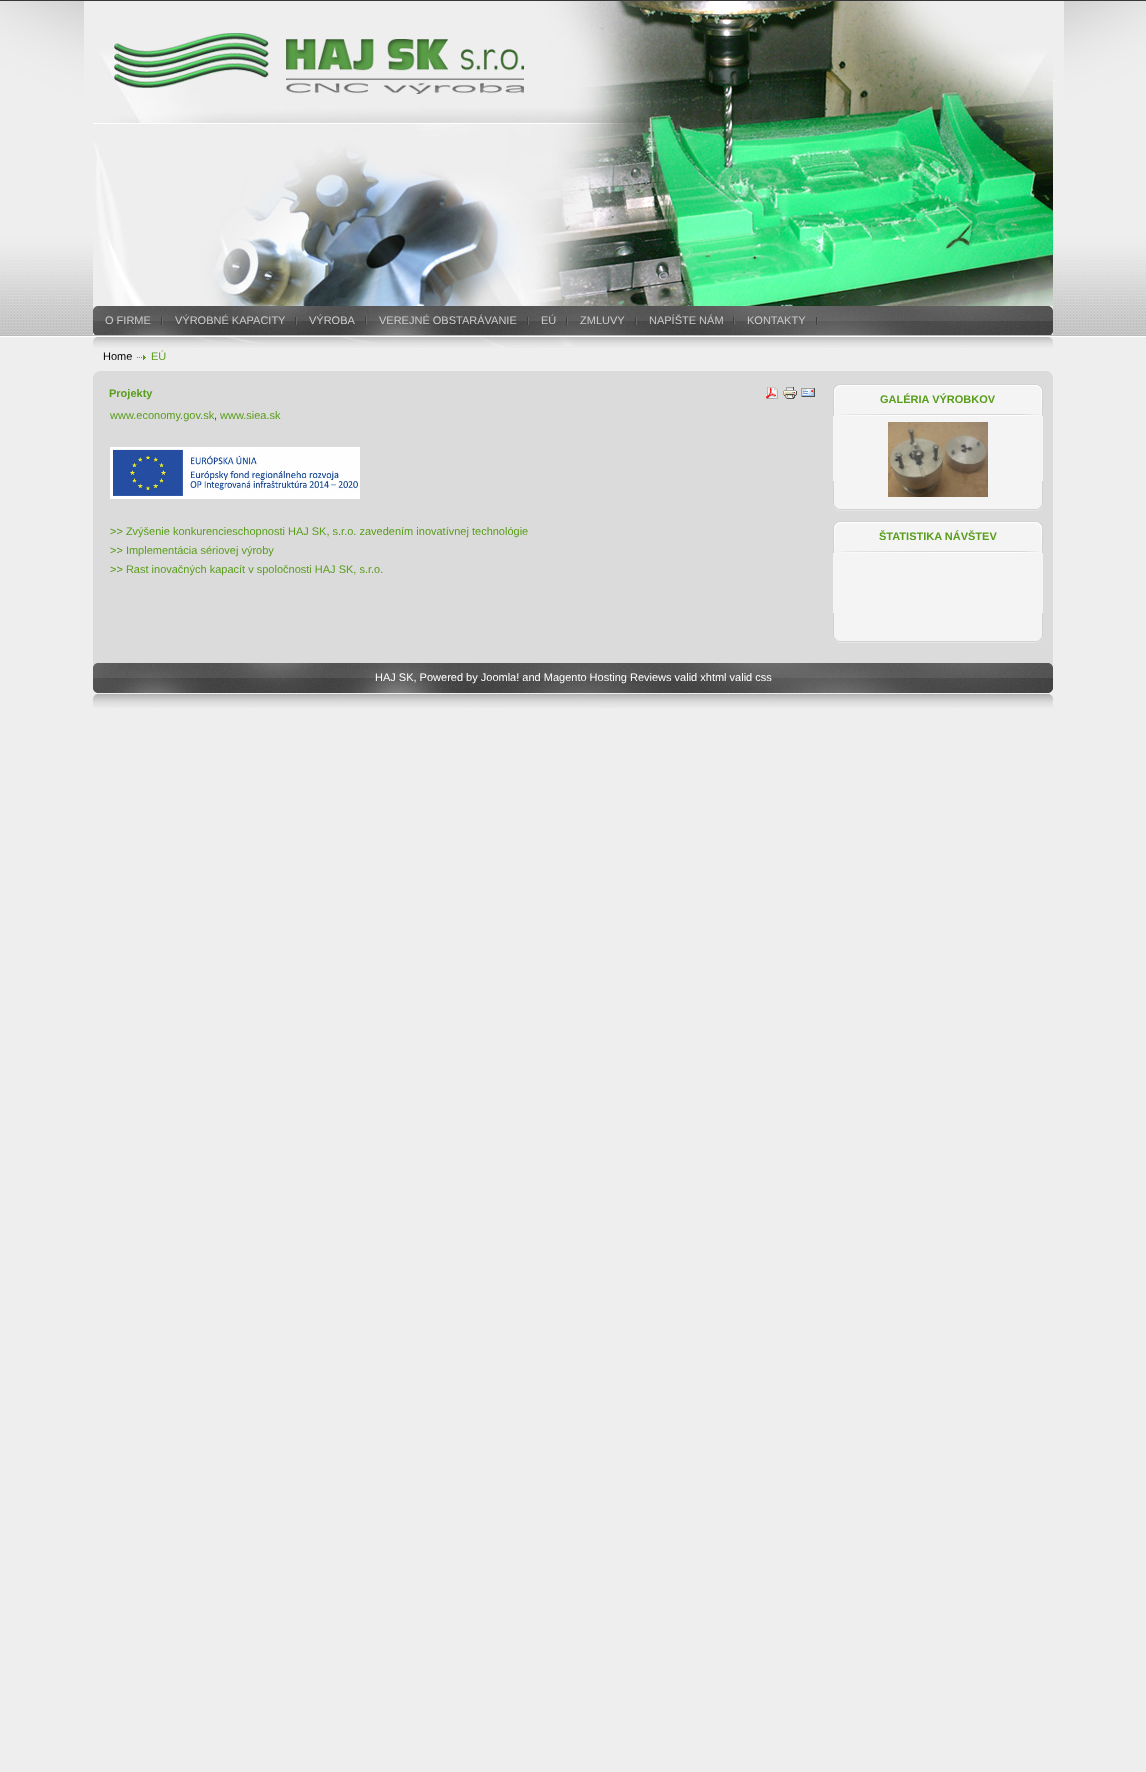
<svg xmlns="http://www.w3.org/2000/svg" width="1146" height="1772">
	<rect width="100%" height="100%" fill="#EEEEEE" />
	<image x="0" y="98" width="1146" height="239" href="assets/img1.png" />
	<image x="0" y="0" width="1146" height="98" href="assets/img2.png" />
	<image x="93" y="0" width="960" height="306" href="assets/img3.png" />
	<image x="93" y="306" width="960" height="42" href="assets/img4.png" />
	<image x="161" y="317" width="2" height="8" href="assets/img5.png" />
	<text x="105" y="324" font-family="Liberation Sans" font-size="11" fill="#CCCCCC">O FIRME</text>
	<image x="295" y="317" width="2" height="8" href="assets/img5.png" />
	<text x="175" y="324" font-family="Liberation Sans" font-size="11" fill="#CCCCCC">VÝROBNÉ KAPACITY</text>
	<image x="365" y="317" width="2" height="8" href="assets/img5.png" />
	<text x="309" y="324" font-family="Liberation Sans" font-size="11" fill="#CCCCCC">VÝROBA</text>
	<image x="527" y="317" width="2" height="8" href="assets/img5.png" />
	<text x="379" y="324" font-family="Liberation Sans" font-size="11" fill="#CCCCCC">VEREJNÉ OBSTARÁVANIE</text>
	<image x="566" y="317" width="2" height="8" href="assets/img5.png" />
	<text x="541" y="324" font-family="Liberation Sans" font-size="11" fill="#CCCCCC">EÚ</text>
	<image x="635" y="317" width="2" height="8" href="assets/img5.png" />
	<text x="580" y="324" font-family="Liberation Sans" font-size="11" fill="#CCCCCC">ZMLUVY</text>
	<image x="733" y="317" width="2" height="8" href="assets/img5.png" />
	<text x="649" y="324" font-family="Liberation Sans" font-size="11" fill="#CCCCCC">NAPÍŠTE NÁM</text>
	<image x="816" y="317" width="2" height="8" href="assets/img5.png" />
	<text x="747" y="324" font-family="Liberation Sans" font-size="11" fill="#CCCCCC">KONTAKTY</text>
	<text x="103" y="360" font-family="Liberation Sans" font-size="11" fill="#000000">Home</text>
	<image x="137" y="355" width="9" height="5" href="assets/img6.png" />
	<text x="151" y="360" font-family="Liberation Sans" font-size="11" fill="#599E1B">EÚ</text>
	<rect x="93" y="376" width="960" height="287" fill="#DBDBDB" />
	<image x="93" y="371" width="960" height="5" href="assets/img7.png" />
	<text x="109" y="397" font-family="Liberation Sans" font-size="11" font-weight="700" fill="#599E1B">Projekty</text>
	<image x="766" y="387" width="12" height="12" href="assets/img8.png" />
	<image x="783" y="387" width="14" height="12" href="assets/img9.png" />
	<image x="801" y="388" width="14" height="9" href="assets/img10.png" />
	<text x="110" y="419" font-family="Liberation Sans" font-size="11" fill="#599E1B">www.economy.gov.sk</text>
	<text x="214" y="419" font-family="Liberation Sans" font-size="11" fill="#424242">,</text>
	<text x="220" y="419" font-family="Liberation Sans" font-size="11" fill="#599E1B">www.siea.sk</text>
	<image x="110" y="447" width="250" height="52" href="assets/img11.png" />
	<g font-family="Liberation Sans" font-size="11" fill="#599E1B">
		<text x="110" y="535">&gt;&gt; Zvýšenie konkurencieschopnosti HAJ SK, s.r.o. zavedením inovatívnej technológie</text>
		<text x="110" y="554">&gt;&gt; Implementácia sériovej výroby</text>
		<text x="110" y="573">&gt;&gt; Rast inovačných kapacít v spoločnosti HAJ SK, s.r.o.</text>
	</g>
	<rect x="833" y="416" width="210" height="65" fill="#F4F4F4" />
	<image x="833" y="481" width="210" height="30" href="assets/img12.png" />
	<image x="833" y="384" width="210" height="30" href="assets/img13.png" />
	<image x="833" y="414" width="210" height="2" href="assets/img14.png" />
	<text x="880" y="403" font-family="Liberation Sans" font-size="11" font-weight="700" fill="#599E1B">GALÉRIA VÝROBKOV</text>
	<image x="888" y="422" width="100" height="75" href="assets/img15.png" />
	<rect x="833" y="553" width="210" height="60" fill="#F4F4F4" />
	<image x="833" y="613" width="210" height="30" href="assets/img12.png" />
	<image x="833" y="521" width="210" height="30" href="assets/img13.png" />
	<image x="833" y="551" width="210" height="2" href="assets/img14.png" />
	<text x="879" y="540" font-family="Liberation Sans" font-size="11" font-weight="700" fill="#599E1B">ŠTATISTIKA NÁVŠTEV</text>
	<image x="93" y="663" width="960" height="45" href="assets/img16.png" />
	<text x="375" y="681" font-family="Liberation Sans" font-size="11" fill="#FFFFFF">HAJ SK, Powered by Joomla! and Magento Hosting Reviews valid xhtml valid css</text>
</svg>
